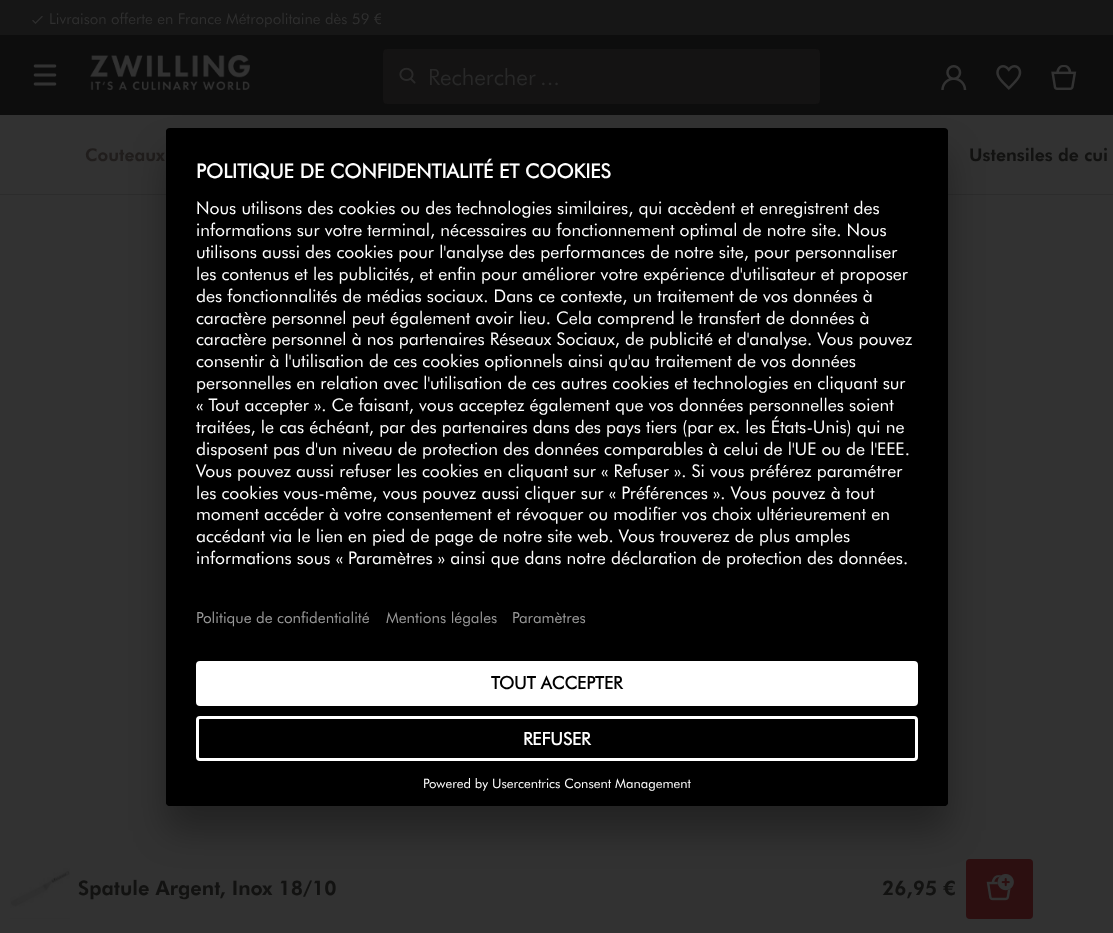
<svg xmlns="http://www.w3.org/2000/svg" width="1113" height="933">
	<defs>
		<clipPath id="clip1"><rect x="30" y="0" width="351" height="35" /></clipPath>
		<clipPath id="clip2"><rect x="166" y="128" width="782" height="678" rx="4" /></clipPath>
		<clipPath id="clip3"><path d="M170 128H944C946 128 948 130 948 132V646H166V132C166 130 168 128 170 128Z" /></clipPath>
	</defs>
	<rect width="100%" height="100%" fill="#161616" />
	<image x="32" y="15" width="11" height="9" href="assets/img1.png" />
	<g clip-path="url(#clip1)">
		<text x="49" y="24" font-family="Futura" font-size="15" fill="#2F2F2F">Livraison offerte en France Métropolitaine dès 59 €</text>
	</g>
	<rect x="0" y="35" width="1113" height="80" fill="#0D0D0D" />
	<image x="33" y="64" width="24" height="22" href="assets/img2.png" />
	<image x="90" y="55" width="160" height="35" href="assets/img3.png" />
	<rect x="383" y="49" width="437" height="55" rx="4" fill="#141313" />
	<image x="399" y="67" width="17" height="17" href="assets/img4.png" />
	<g font-family="Futura" font-size="22.5" fill="#282828">
		<text x="428" y="85">Rechercher</text>
		<text x="540" y="85">...</text>
	</g>
	<image x="941" y="65" width="26" height="25" href="assets/img5.png" />
	<image x="996" y="65" width="26" height="25" href="assets/img6.png" />
	<image x="1051" y="65" width="26" height="25" href="assets/img7.png" />
	<rect x="0" y="115" width="1113" height="79" fill="#323232" />
	<rect x="0" y="194" width="1113" height="1" fill="#2C2C2C" />
	<text x="85" y="161" font-family="Futura" font-size="17.5" font-weight="700" fill="#201D1C">Couteaux</text>
	<text x="969" y="161" font-family="Futura" font-size="17.5" font-weight="700" fill="#121211">Ustensiles de cui</text>
	<rect x="0" y="195" width="1113" height="738" fill="#323232" />
	<image x="10" y="859" width="60" height="60" href="assets/img8.png" />
	<g font-family="Futura" font-size="20" font-weight="700" fill="#121211">
		<text x="78" y="895">Spatule Argent, Inox 18/10</text>
		<text x="882" y="895">26,95 €</text>
	</g>
	<rect x="966" y="859" width="67" height="60" rx="4" fill="#2C0F10" />
	<image x="986" y="874" width="28" height="27" href="assets/img9.png" />
	<rect x="166" y="153" width="782" height="678" rx="4" fill="#000000" fill-opacity="0.3" filter="blur(17.5px)" />
	<rect x="166" y="128" width="782" height="678" rx="4" fill="#000000" />
	<g clip-path="url(#clip2)">
		<g clip-path="url(#clip3)">
			<rect x="166" y="129" width="782" height="517" fill="#000000" />
		</g>
	</g>
	<text x="196" y="178" font-family="'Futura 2'" font-size="19.7" font-weight="700" fill="#FFFFFF">POLITIQUE DE CONFIDENTIALITÉ ET COOKIES</text>
	<g font-family="Futura" font-size="17.5" fill="#FFFFFF">
		<text x="196" y="214">Nous utilisons des cookies ou des technologies similaires, qui accèdent et enregistrent des</text>
		<text x="196" y="236">informations sur votre terminal, nécessaires au fonctionnement optimal de notre site. Nous</text>
		<text x="196" y="258">utilisons aussi des cookies pour l'analyse des performances de notre site, pour personnaliser</text>
		<text x="196" y="280">les contenus et les publicités, et enfin pour améliorer votre expérience d'utilisateur et proposer</text>
		<text x="196" y="302">des fonctionnalités de médias sociaux. Dans ce contexte, un traitement de vos données à</text>
		<text x="196" y="324">caractère personnel peut également avoir lieu. Cela comprend le transfert de données à</text>
		<text x="196" y="345">caractère personnel à nos partenaires Réseaux Sociaux, de publicité et d'analyse. Vous pouvez</text>
		<text x="196" y="367">consentir à l'utilisation de ces cookies optionnels ainsi qu'au traitement de vos données</text>
		<text x="196" y="389">personnelles en relation avec l'utilisation de ces autres cookies et technologies en cliquant sur</text>
		<text x="196" y="411">« Tout accepter ». Ce faisant, vous acceptez également que vos données personnelles soient</text>
		<text x="196" y="433">traitées, le cas échéant, par des partenaires dans des pays tiers (par ex. les États-Unis) qui ne</text>
		<text x="196" y="455">disposent pas d'un niveau de protection des données comparables à celui de l'UE ou de l'EEE.</text>
		<text x="196" y="477">Vous pouvez aussi refuser les cookies en cliquant sur « Refuser ». Si vous préférez paramétrer</text>
		<text x="196" y="499">les cookies vous-même, vous pouvez aussi cliquer sur « Préférences ». Vous pouvez à tout</text>
		<text x="196" y="520">moment accéder à votre consentement et révoquer ou modifier vos choix ultérieurement en</text>
		<text x="196" y="542">accédant via le lien en pied de page de notre site web. Vous trouverez de plus amples</text>
		<text x="196" y="564">informations sous « Paramètres » ainsi que dans notre déclaration de protection des données.</text>
	</g>
	<g font-family="Futura" font-size="15.25" fill="#999999">
		<text x="196" y="623">Politique de confidentialité</text>
		<text x="386" y="623">Mentions légales</text>
		<text x="512" y="623">Paramètres</text>
	</g>
	<path d="M166 646H948V802C948 804 946 806 944 806H170C168 806 166 804 166 802Z" fill="#000000" />
	<rect x="197.5" y="662.5" width="719" height="42" rx="2.5" fill="#FFFFFF" stroke="#FFFFFF" stroke-width="3" />
	<text x="491" y="689" font-family="'Futura 2'" font-size="17.5" font-weight="700" fill="#000000">TOUT ACCEPTER</text>
	<rect x="197.5" y="717.5" width="719" height="42" rx="2.5" fill="none" stroke="#FFFFFF" stroke-width="3" />
	<text x="523" y="745" font-family="'Futura 2'" font-size="17.5" font-weight="700" fill="#FFFFFF">REFUSER</text>
	<text x="423" y="788" font-family="Futura" font-size="13.1" fill="#FFFFFF">Powered by Usercentrics Consent Management</text>
</svg>
